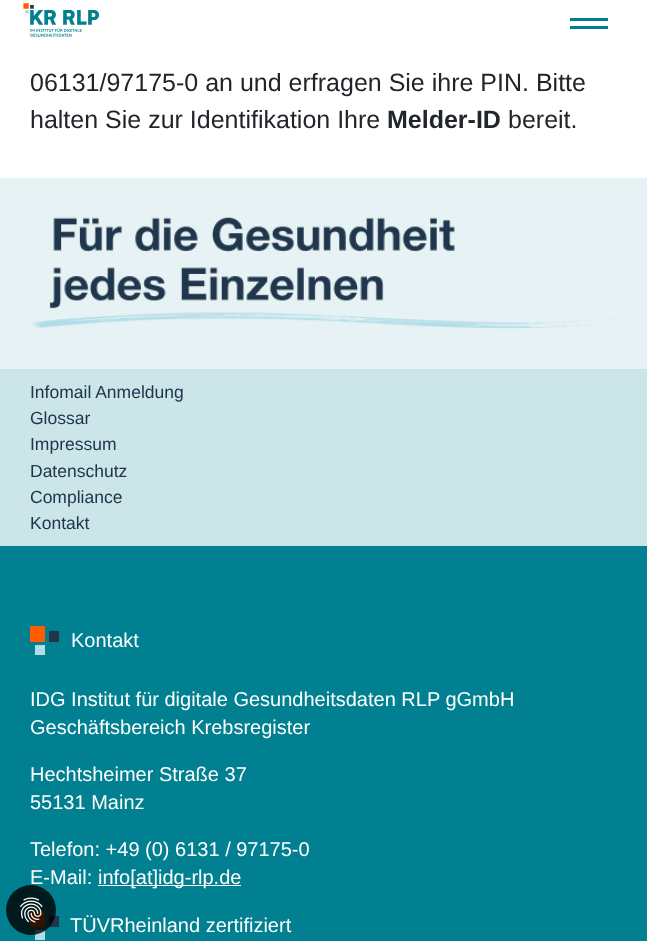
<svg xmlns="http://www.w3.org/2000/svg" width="647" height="941">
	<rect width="100%" height="100%" fill="#008090" />
	<rect x="0" y="0" width="647" height="178" fill="#FFFFFF" />
	<image x="23" y="3" width="77" height="34" href="assets/img1.png" />
	<rect x="570" y="18" width="38" height="3" fill="#008090" />
	<rect x="570" y="26" width="38" height="3" fill="#008090" />
	<g font-family="Liberation Sans" font-size="25" fill="#212529">
		<text x="30" y="91">06131/97175-0 an und erfragen Sie ihre PIN. Bitte</text>
		<text x="30" y="128">halten Sie zur Identifikation Ihre</text>
	</g>
	<text x="387" y="128" font-family="Liberation Sans" font-size="25" font-weight="700" fill="#212529">Melder-ID</text>
	<text x="508" y="128" font-family="Liberation Sans" font-size="25" fill="#212529">bereit.</text>
	<rect x="0" y="178" width="647" height="191" fill="#E6F2F4" />
	<image x="30" y="217" width="586" height="112" href="assets/img2.png" />
	<rect x="0" y="369" width="647" height="177" fill="#CCE5E8" />
	<g font-family="Liberation Sans" font-size="17.5" fill="#20364C">
		<text x="30" y="398">Infomail Anmeldung</text>
		<text x="30" y="424">Glossar</text>
		<text x="30" y="450">Impressum</text>
		<text x="30" y="477">Datenschutz</text>
		<text x="30" y="503">Compliance</text>
		<text x="30" y="529">Kontakt</text>
	</g>
	<rect x="35" y="645" width="10" height="10" fill="#B1DDE8" />
	<rect x="30" y="626" width="15" height="16" fill="#FF5C00" />
	<rect x="49" y="631" width="10" height="11" fill="#20364C" />
	<g font-family="Liberation Sans" font-size="20" fill="#FFFFFF">
		<text x="71" y="647">Kontakt</text>
		<text x="30" y="706">IDG Institut für digitale Gesundheitsdaten RLP gGmbH</text>
		<text x="30" y="734">Geschäftsbereich Krebsregister</text>
		<text x="30" y="781">Hechtsheimer Straße 37</text>
		<text x="30" y="809">55131 Mainz</text>
		<text x="30" y="856">Telefon: +49 (0) 6131 / 97175-0</text>
		<text x="30" y="884">E-Mail:</text>
	</g>
	<rect x="98" y="885" width="143" height="1" fill="#FFFFFF" />
	<text x="98" y="884" font-family="Liberation Sans" font-size="20" fill="#FFFFFF">info[at]idg-rlp.de</text>
	<rect x="35" y="930" width="10" height="10" fill="#B1DDE8" />
	<rect x="30" y="911" width="15" height="16" fill="#FF5C00" />
	<rect x="49" y="916" width="10" height="11" fill="#20364C" />
	<text x="70" y="932" font-family="Liberation Sans" font-size="20" fill="#FFFFFF">TÜVRheinland zertifiziert</text>
	<circle cx="31" cy="910" r="25" fill="#000000" fill-opacity="0.8" />
	<image x="20" y="897" width="23" height="26" href="assets/img3.png" />
</svg>
